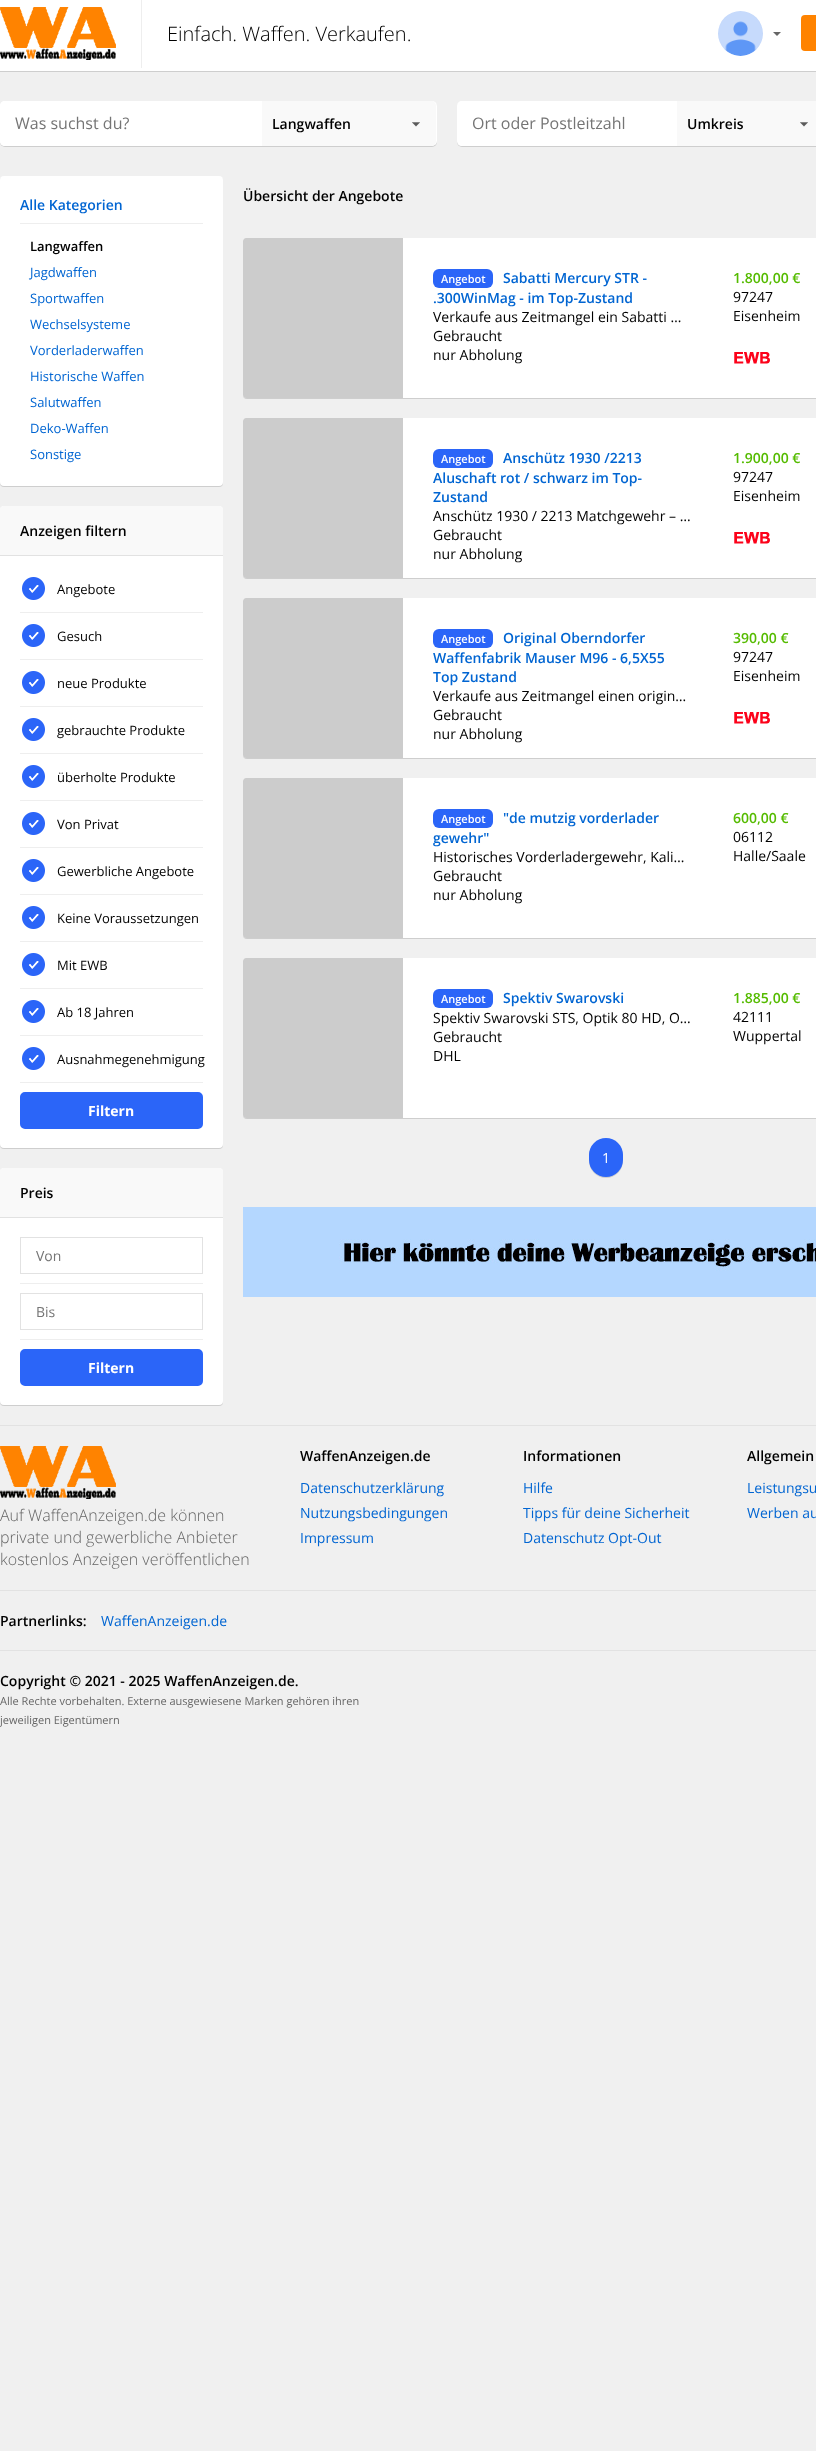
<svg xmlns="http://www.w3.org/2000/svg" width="816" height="2451">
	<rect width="100%" height="100%" fill="#F0F0F0" />
	<rect x="0" y="1" width="816" height="71" fill="#000000" fill-opacity="0.14" filter="blur(0.5px)" />
	<rect x="0" y="0" width="816" height="71" fill="#FFFFFF" />
	<image x="0" y="7" width="116" height="53" href="assets/img1.png" />
	<rect x="141" y="0" width="1" height="68" fill="#EEEEEE" />
	<text x="167" y="41" font-family="Open Sans" font-size="20" font-weight="300" fill="#000000">Einfach. Waffen. Verkaufen.</text>
	<image x="718" y="11" width="45" height="45" href="assets/img2.png" />
	<path d="M773 32H781L777 36Z" fill="#666666" />
	<rect x="801" y="15" width="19" height="36" rx="4" fill="#FF8300" />
	<rect x="0" y="102" width="437" height="45" rx="5" fill="#000000" fill-opacity="0.14" filter="blur(0.5px)" />
	<rect x="0" y="101" width="437" height="45" rx="5" fill="#FFFFFF" />
	<path d="M5 101H262V146H5C2 146 0 144 0 141V106C0 103 2 101 5 101Z" fill="#FFFFFF" />
	<text x="15" y="129" font-family="Open Sans" font-size="16" fill="#757575">Was suchst du?</text>
	<path d="M262 101H431C434 101 436 103 436 106V141C436 144 434 146 431 146H262Z" fill="#F9F9F9" />
	<image x="412" y="122" width="8" height="5" href="assets/img3.png" />
	<text x="272" y="129" font-family="Open Sans" font-size="14" font-weight="600" fill="#000000">Langwaffen</text>
	<rect x="457" y="102" width="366" height="45" rx="5" fill="#000000" fill-opacity="0.14" filter="blur(0.5px)" />
	<path d="M462 101H677V146H462C459 146 457 144 457 141V106C457 103 459 101 462 101Z" fill="#FFFFFF" />
	<text x="472" y="129" font-family="Open Sans" font-size="16" fill="#757575">Ort oder Postleitzahl</text>
	<rect x="677" y="101" width="139" height="45" fill="#F9F9F9" />
	<image x="800" y="122" width="8" height="5" href="assets/img3.png" />
	<text x="687" y="129" font-family="Open Sans" font-size="14" font-weight="600" fill="#000000">Umkreis</text>
	<rect x="0" y="177" width="223" height="310" rx="4" fill="#000000" fill-opacity="0.14" filter="blur(0.5px)" />
	<rect x="0" y="176" width="223" height="310" rx="4" fill="#FFFFFF" />
	<rect x="20" y="223" width="183" height="1" fill="#EEEEEE" />
	<text x="20" y="210" font-family="Open Sans" font-size="14" font-weight="600" fill="#0165D2">Alle Kategorien</text>
	<text x="30" y="251" font-family="Open Sans" font-size="13" font-weight="600" fill="#000000">Langwaffen</text>
	<g font-family="Open Sans" font-size="13" fill="#0165D2">
		<text x="30" y="277">Jagdwaffen</text>
		<text x="30" y="303">Sportwaffen</text>
		<text x="30" y="329">Wechselsysteme</text>
		<text x="30" y="355">Vorderladerwaffen</text>
		<text x="30" y="381">Historische Waffen</text>
		<text x="30" y="407">Salutwaffen</text>
		<text x="30" y="433">Deko-Waffen</text>
		<text x="30" y="459">Sonstige</text>
	</g>
	<rect x="0" y="507" width="223" height="642" rx="4" fill="#000000" fill-opacity="0.14" filter="blur(0.5px)" />
	<rect x="0" y="506" width="223" height="642" rx="4" fill="#FFFFFF" />
	<path d="M4 506H219C221 506 223 508 223 510V556H0V510C0 508 2 506 4 506Z" fill="#F9F9F9" />
	<rect x="0" y="555" width="223" height="1" fill="#E2E2E2" />
	<text x="20" y="536" font-family="Open Sans" font-size="14" font-weight="600" fill="#000000">Anzeigen filtern</text>
	<rect x="20" y="612" width="183" height="1" fill="#EEEEEE" />
	<image x="22" y="577" width="23" height="23" href="assets/img4.png" />
	<text x="57" y="594" font-family="Open Sans" font-size="13" fill="#000000">Angebote</text>
	<rect x="20" y="659" width="183" height="1" fill="#EEEEEE" />
	<image x="22" y="624" width="23" height="23" href="assets/img4.png" />
	<text x="57" y="641" font-family="Open Sans" font-size="13" fill="#000000">Gesuch</text>
	<rect x="20" y="706" width="183" height="1" fill="#EEEEEE" />
	<image x="22" y="671" width="23" height="23" href="assets/img4.png" />
	<text x="57" y="688" font-family="Open Sans" font-size="13" fill="#000000">neue Produkte</text>
	<rect x="20" y="753" width="183" height="1" fill="#EEEEEE" />
	<image x="22" y="718" width="23" height="23" href="assets/img4.png" />
	<text x="57" y="735" font-family="Open Sans" font-size="13" fill="#000000">gebrauchte Produkte</text>
	<rect x="20" y="800" width="183" height="1" fill="#EEEEEE" />
	<image x="22" y="765" width="23" height="23" href="assets/img4.png" />
	<text x="57" y="782" font-family="Open Sans" font-size="13" fill="#000000">überholte Produkte</text>
	<rect x="20" y="847" width="183" height="1" fill="#EEEEEE" />
	<image x="22" y="812" width="23" height="23" href="assets/img4.png" />
	<text x="57" y="829" font-family="Open Sans" font-size="13" fill="#000000">Von Privat</text>
	<rect x="20" y="894" width="183" height="1" fill="#EEEEEE" />
	<image x="22" y="859" width="23" height="23" href="assets/img4.png" />
	<text x="57" y="876" font-family="Open Sans" font-size="13" fill="#000000">Gewerbliche Angebote</text>
	<rect x="20" y="941" width="183" height="1" fill="#EEEEEE" />
	<image x="22" y="906" width="23" height="23" href="assets/img4.png" />
	<text x="57" y="923" font-family="Open Sans" font-size="13" fill="#000000">Keine Voraussetzungen</text>
	<rect x="20" y="988" width="183" height="1" fill="#EEEEEE" />
	<image x="22" y="953" width="23" height="23" href="assets/img4.png" />
	<text x="57" y="970" font-family="Open Sans" font-size="13" fill="#000000">Mit EWB</text>
	<rect x="20" y="1035" width="183" height="1" fill="#EEEEEE" />
	<image x="22" y="1000" width="23" height="23" href="assets/img4.png" />
	<text x="57" y="1017" font-family="Open Sans" font-size="13" fill="#000000">Ab 18 Jahren</text>
	<rect x="20" y="1082" width="183" height="1" fill="#EEEEEE" />
	<image x="22" y="1047" width="23" height="23" href="assets/img4.png" />
	<text x="57" y="1064" font-family="Open Sans" font-size="13" fill="#000000">Ausnahmegenehmigung</text>
	<rect x="21" y="1093" width="181" height="35" rx="4" fill="#2B65F8" stroke="#2B65F8" stroke-width="2" />
	<text x="88" y="1116" font-family="Open Sans" font-size="14" font-weight="700" fill="#FFFFFF">Filtern</text>
	<rect x="0" y="1169" width="223" height="237" rx="4" fill="#000000" fill-opacity="0.14" filter="blur(0.5px)" />
	<rect x="0" y="1168" width="223" height="237" rx="4" fill="#FFFFFF" />
	<path d="M4 1168H219C221 1168 223 1170 223 1172V1218H0V1172C0 1170 2 1168 4 1168Z" fill="#F9F9F9" />
	<rect x="0" y="1217" width="223" height="1" fill="#E2E2E2" />
	<text x="20" y="1198" font-family="Open Sans" font-size="14" font-weight="600" fill="#000000">Preis</text>
	<rect x="20" y="1283" width="183" height="1" fill="#EEEEEE" />
	<rect x="20.5" y="1237.5" width="182" height="36" fill="none" stroke="#E2E2E2" />
	<text x="36" y="1261" font-family="Open Sans" font-size="14" fill="#757575">Von</text>
	<rect x="20" y="1339" width="183" height="1" fill="#EEEEEE" />
	<rect x="20.5" y="1293.5" width="182" height="36" fill="none" stroke="#E2E2E2" />
	<text x="36" y="1317" font-family="Open Sans" font-size="14" fill="#757575">Bis</text>
	<rect x="21" y="1350" width="181" height="35" rx="4" fill="#2B65F8" stroke="#2B65F8" stroke-width="2" />
	<text x="88" y="1373" font-family="Open Sans" font-size="14" font-weight="700" fill="#FFFFFF">Filtern</text>
	<text x="243" y="201" font-family="Open Sans" font-size="14" font-weight="600" fill="#000000">Übersicht der Angebote</text>
	<rect x="243" y="239" width="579" height="160" rx="4" fill="#000000" fill-opacity="0.14" filter="blur(0.5px)" />
	<rect x="243" y="238" width="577" height="160" rx="4" fill="#FFFFFF" />
	<path d="M246 238H403V398H246C244.5 398 243 396.5 243 395V241C243 239.5 244.5 238 246 238Z" fill="#CCCCCC" />
	<rect x="433" y="269" width="60" height="19" rx="6" fill="#2B65F8" />
	<text x="441" y="283" font-family="Open Sans" font-size="11" font-weight="600" fill="#FFFFFF">Angebot</text>
	<g font-family="Open Sans" font-size="14" font-weight="600" fill="#0165D2">
		<text x="503" y="283">Sabatti Mercury STR -</text>
		<text x="433" y="303">.300WinMag - im Top-Zustand</text>
	</g>
	<g font-family="Open Sans" font-size="14" fill="#000000">
		<text x="433" y="322">Verkaufe aus Zeitmangel ein Sabatti …</text>
		<text x="433" y="341">Gebraucht</text>
		<text x="433" y="360">nur Abholung</text>
	</g>
	<text x="733" y="283" font-family="Open Sans" font-size="14" font-weight="600" fill="#55BB00">1.800,00 €</text>
	<g font-family="Open Sans" font-size="14" fill="#000000">
		<text x="733" y="302">97247</text>
		<text x="733" y="321">Eisenheim</text>
	</g>
	<image x="734" y="352" width="36" height="12" href="assets/img5.png" />
	<rect x="243" y="419" width="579" height="160" rx="4" fill="#000000" fill-opacity="0.14" filter="blur(0.5px)" />
	<rect x="243" y="418" width="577" height="160" rx="4" fill="#FFFFFF" />
	<path d="M246 418H403V578H246C244.5 578 243 576.5 243 575V421C243 419.5 244.5 418 246 418Z" fill="#CCCCCC" />
	<rect x="433" y="449" width="60" height="19" rx="6" fill="#2B65F8" />
	<text x="441" y="463" font-family="Open Sans" font-size="11" font-weight="600" fill="#FFFFFF">Angebot</text>
	<g font-family="Open Sans" font-size="14" font-weight="600" fill="#0165D2">
		<text x="503" y="463">Anschütz 1930 /2213</text>
		<text x="433" y="483">Aluschaft rot / schwarz im Top-</text>
		<text x="433" y="502">Zustand</text>
	</g>
	<g font-family="Open Sans" font-size="14" fill="#000000">
		<text x="433" y="521">Anschütz 1930 / 2213 Matchgewehr – …</text>
		<text x="433" y="540">Gebraucht</text>
		<text x="433" y="559">nur Abholung</text>
	</g>
	<text x="733" y="463" font-family="Open Sans" font-size="14" font-weight="600" fill="#55BB00">1.900,00 €</text>
	<g font-family="Open Sans" font-size="14" fill="#000000">
		<text x="733" y="482">97247</text>
		<text x="733" y="501">Eisenheim</text>
	</g>
	<image x="734" y="532" width="36" height="12" href="assets/img5.png" />
	<rect x="243" y="599" width="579" height="160" rx="4" fill="#000000" fill-opacity="0.14" filter="blur(0.5px)" />
	<rect x="243" y="598" width="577" height="160" rx="4" fill="#FFFFFF" />
	<path d="M246 598H403V758H246C244.5 758 243 756.5 243 755V601C243 599.5 244.5 598 246 598Z" fill="#CCCCCC" />
	<rect x="433" y="629" width="60" height="19" rx="6" fill="#2B65F8" />
	<text x="441" y="643" font-family="Open Sans" font-size="11" font-weight="600" fill="#FFFFFF">Angebot</text>
	<g font-family="Open Sans" font-size="14" font-weight="600" fill="#0165D2">
		<text x="503" y="643">Original Oberndorfer</text>
		<text x="433" y="663">Waffenfabrik Mauser M96 - 6,5X55</text>
		<text x="433" y="682">Top Zustand</text>
	</g>
	<g font-family="Open Sans" font-size="14" fill="#000000">
		<text x="433" y="701">Verkaufe aus Zeitmangel einen origin…</text>
		<text x="433" y="720">Gebraucht</text>
		<text x="433" y="739">nur Abholung</text>
	</g>
	<text x="733" y="643" font-family="Open Sans" font-size="14" font-weight="600" fill="#55BB00">390,00 €</text>
	<g font-family="Open Sans" font-size="14" fill="#000000">
		<text x="733" y="662">97247</text>
		<text x="733" y="681">Eisenheim</text>
	</g>
	<image x="734" y="712" width="36" height="12" href="assets/img5.png" />
	<rect x="243" y="779" width="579" height="160" rx="4" fill="#000000" fill-opacity="0.14" filter="blur(0.5px)" />
	<rect x="243" y="778" width="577" height="160" rx="4" fill="#FFFFFF" />
	<path d="M246 778H403V938H246C244.5 938 243 936.5 243 935V781C243 779.5 244.5 778 246 778Z" fill="#CCCCCC" />
	<rect x="433" y="809" width="60" height="19" rx="6" fill="#2B65F8" />
	<text x="441" y="823" font-family="Open Sans" font-size="11" font-weight="600" fill="#FFFFFF">Angebot</text>
	<g font-family="Open Sans" font-size="14" font-weight="600" fill="#0165D2">
		<text x="503" y="823">"de mutzig vorderlader</text>
		<text x="433" y="843">gewehr"</text>
	</g>
	<g font-family="Open Sans" font-size="14" fill="#000000">
		<text x="433" y="862">Historisches Vorderladergewehr, Kali…</text>
		<text x="433" y="881">Gebraucht</text>
		<text x="433" y="900">nur Abholung</text>
	</g>
	<text x="733" y="823" font-family="Open Sans" font-size="14" font-weight="600" fill="#55BB00">600,00 €</text>
	<g font-family="Open Sans" font-size="14" fill="#000000">
		<text x="733" y="842">06112</text>
		<text x="733" y="861">Halle/Saale</text>
	</g>
	<rect x="243" y="959" width="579" height="160" rx="4" fill="#000000" fill-opacity="0.14" filter="blur(0.5px)" />
	<rect x="243" y="958" width="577" height="160" rx="4" fill="#FFFFFF" />
	<path d="M246 958H403V1118H246C244.5 1118 243 1116.5 243 1115V961C243 959.5 244.5 958 246 958Z" fill="#CCCCCC" />
	<rect x="433" y="989" width="60" height="19" rx="6" fill="#2B65F8" />
	<text x="441" y="1003" font-family="Open Sans" font-size="11" font-weight="600" fill="#FFFFFF">Angebot</text>
	<text x="503" y="1003" font-family="Open Sans" font-size="14" font-weight="600" fill="#0165D2">Spektiv Swarovski</text>
	<g font-family="Open Sans" font-size="14" fill="#000000">
		<text x="433" y="1023">Spektiv Swarovski STS, Optik 80 HD, O…</text>
		<text x="433" y="1042">Gebraucht</text>
		<text x="433" y="1061">DHL</text>
	</g>
	<text x="733" y="1003" font-family="Open Sans" font-size="14" font-weight="600" fill="#55BB00">1.885,00 €</text>
	<g font-family="Open Sans" font-size="14" fill="#000000">
		<text x="733" y="1022">42111</text>
		<text x="733" y="1041">Wuppertal</text>
	</g>
	<rect x="589" y="1139" width="34" height="39" rx="17" fill="#000000" fill-opacity="0.14" filter="blur(0.5px)" />
	<rect x="589" y="1138" width="34" height="39" rx="17" fill="#2B65F8" />
	<text x="602" y="1163" font-family="Open Sans" font-size="14" fill="#FFFFFF">1</text>
	<image x="243" y="1207" width="573" height="90" href="assets/img6.png" />
	<rect x="0" y="1425" width="816" height="1" fill="#E2E2E2" />
	<image x="0" y="1446" width="116" height="53" href="assets/img7.png" />
	<g font-family="Open Sans" font-size="16" font-weight="300" fill="#666666">
		<text x="0" y="1521">Auf WaffenAnzeigen.de können</text>
		<text x="0" y="1543">private und gewerbliche Anbieter</text>
		<text x="0" y="1565">kostenlos Anzeigen veröffentlichen</text>
	</g>
	<text x="300" y="1461" font-family="Open Sans" font-size="14" font-weight="600" fill="#000000">WaffenAnzeigen.de</text>
	<g font-family="Open Sans" font-size="14" fill="#0165D2">
		<text x="300" y="1493">Datenschutzerklärung</text>
		<text x="300" y="1518">Nutzungsbedingungen</text>
		<text x="300" y="1543">Impressum</text>
	</g>
	<text x="523" y="1461" font-family="Open Sans" font-size="14" font-weight="600" fill="#000000">Informationen</text>
	<g font-family="Open Sans" font-size="14" fill="#0165D2">
		<text x="523" y="1493">Hilfe</text>
		<text x="523" y="1518">Tipps für deine Sicherheit</text>
		<text x="523" y="1543">Datenschutz Opt-Out</text>
	</g>
	<text x="747" y="1461" font-family="Open Sans" font-size="14" font-weight="600" fill="#000000">Allgemein</text>
	<g font-family="Open Sans" font-size="14" fill="#0165D2">
		<text x="747" y="1493">Leistungsu</text>
		<text x="747" y="1518">Werben au</text>
	</g>
	<rect x="0" y="1590" width="816" height="1" fill="#E2E2E2" />
	<text x="0" y="1626" font-family="Open Sans" font-size="14" font-weight="600" fill="#000000">Partnerlinks:</text>
	<text x="101" y="1626" font-family="Open Sans" font-size="14" fill="#0165D2">WaffenAnzeigen.de</text>
	<rect x="0" y="1650" width="816" height="1" fill="#E2E2E2" />
	<text x="0" y="1686" font-family="Open Sans" font-size="14" font-weight="600" fill="#000000">Copyright © 2021 - 2025 WaffenAnzeigen.de.</text>
	<g font-family="Open Sans" font-size="11" fill="#666666">
		<text x="0" y="1705">Alle Rechte vorbehalten. Externe ausgewiesene Marken gehören ihren</text>
		<text x="0" y="1724">jeweiligen Eigentümern</text>
	</g>
</svg>
